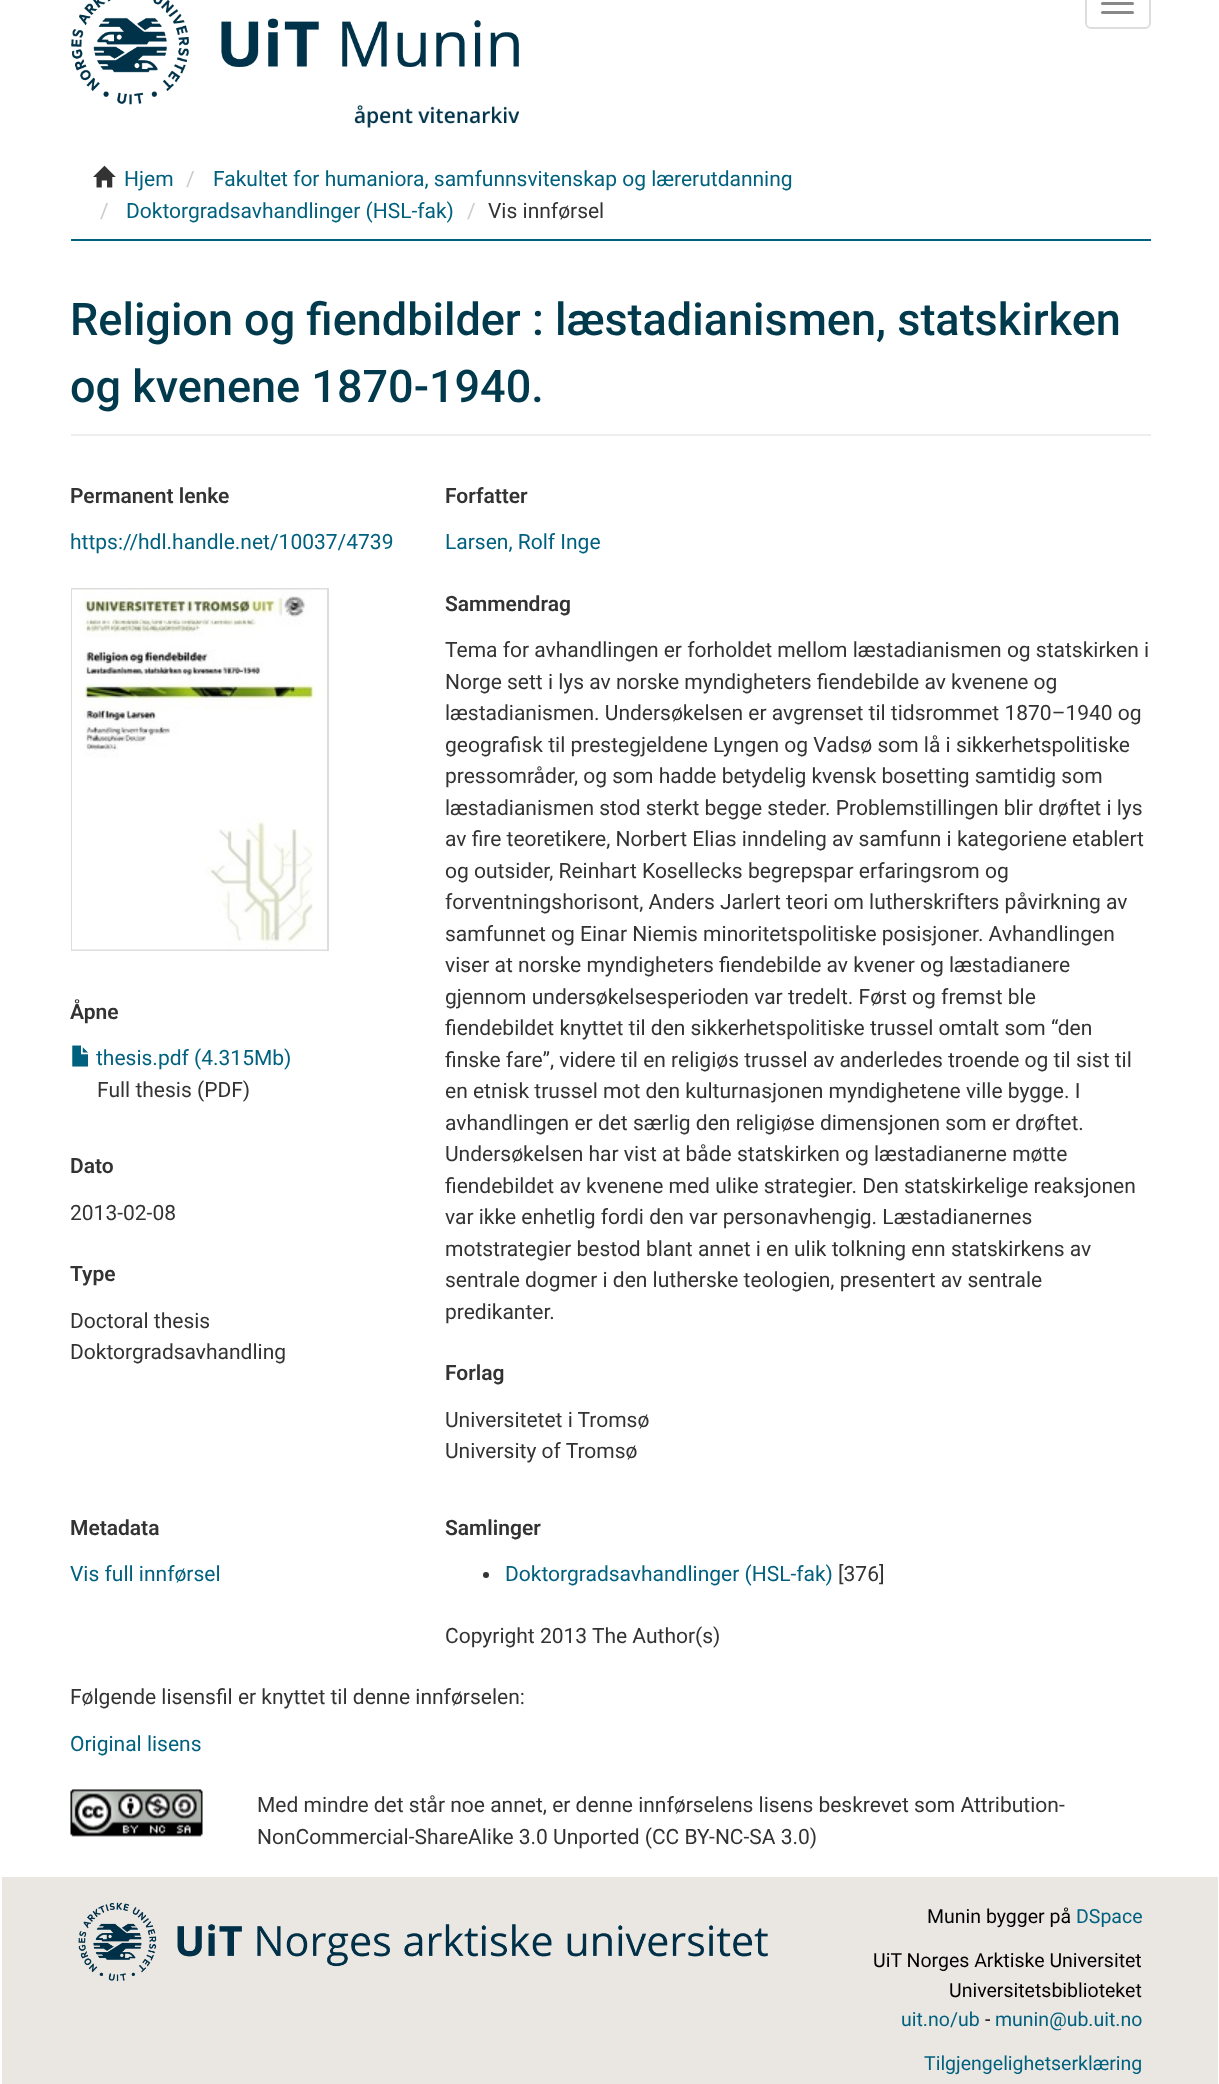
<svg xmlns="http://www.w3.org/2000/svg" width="1219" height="2084">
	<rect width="100%" height="100%" fill="#FFFFFF" />
	<image x="71" y="0" width="448" height="105" href="assets/img1.png" />
	<image x="354" y="105" width="165" height="23" href="assets/img2.png" />
	<rect x="1086" y="-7" width="64" height="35" rx="5" fill="none" stroke="#DDDDDD" stroke-width="2" />
	<rect x="1101" y="2" width="33" height="3" rx="1.5" fill="#888888" />
	<rect x="1101" y="11" width="33" height="3" rx="1.5" fill="#888888" />
	<rect x="71" y="239" width="1080" height="2" fill="#00617F" />
	<image x="93" y="165" width="23" height="23" href="assets/img3.png" />
	<text x="124" y="186" font-family="Roboto" font-size="21" fill="#00617F">Hjem</text>
	<text x="186" y="186" font-family="Roboto" font-size="21" fill="#CCCCCC">/</text>
	<text x="213" y="186" font-family="Roboto" font-size="21" fill="#00617F">Fakultet for humaniora, samfunnsvitenskap og lærerutdanning</text>
	<text x="100" y="218" font-family="Roboto" font-size="21" fill="#CCCCCC">/</text>
	<text x="126" y="218" font-family="Roboto" font-size="21" fill="#00617F">Doktorgradsavhandlinger (HSL-fak)</text>
	<text x="467" y="218" font-family="Roboto" font-size="21" fill="#CCCCCC">/</text>
	<text x="488" y="218" font-family="Roboto" font-size="21" fill="#333333">Vis innførsel</text>
	<rect x="71" y="434" width="1080" height="2" fill="#EEEEEE" />
	<g font-family="Roboto" font-size="45" font-weight="500" fill="#003A4C">
		<text x="70" y="335">Religion og fiendbilder : læstadianismen, statskirken</text>
		<text x="70" y="402">og kvenene 1870-1940.</text>
	</g>
	<text x="70" y="503" font-family="Roboto" font-size="21" font-weight="600" fill="#333333">Permanent lenke</text>
	<text x="70" y="549" font-family="Roboto" font-size="21" fill="#00617F">https://hdl.handle.net/10037/4739</text>
	<rect x="72" y="589" width="256" height="361" fill="none" stroke="#DDDDDD" stroke-width="2" />
	<image x="72" y="589" width="255" height="361" href="assets/img4.png" />
	<text x="70" y="1019" font-family="Roboto" font-size="21" font-weight="600" fill="#333333">Åpne</text>
	<image x="72" y="1045" width="16" height="22" href="assets/img5.png" />
	<text x="96" y="1065" font-family="Roboto" font-size="21" fill="#00617F">thesis.pdf (4.315Mb)</text>
	<text x="97" y="1097" font-family="Roboto" font-size="21" fill="#333333">Full thesis (PDF)</text>
	<text x="70" y="1173" font-family="Roboto" font-size="21" font-weight="600" fill="#333333">Dato</text>
	<text x="70" y="1220" font-family="Roboto" font-size="21" fill="#333333">2013-02-08</text>
	<text x="70" y="1281" font-family="Roboto" font-size="21" font-weight="600" fill="#333333">Type</text>
	<g font-family="Roboto" font-size="21" fill="#333333">
		<text x="70" y="1328">Doctoral thesis</text>
		<text x="70" y="1359">Doktorgradsavhandling</text>
	</g>
	<text x="445" y="503" font-family="Roboto" font-size="21" font-weight="600" fill="#333333">Forfatter</text>
	<text x="445" y="549" font-family="Roboto" font-size="21" fill="#00617F">Larsen, Rolf Inge</text>
	<text x="445" y="611" font-family="Roboto" font-size="21" font-weight="600" fill="#333333">Sammendrag</text>
	<g font-family="Roboto" font-size="21" fill="#333333">
		<text x="445" y="657">Tema for avhandlingen er forholdet mellom læstadianismen og statskirken i</text>
		<text x="445" y="689">Norge sett i lys av norske myndigheters fiendebilde av kvenene og</text>
		<text x="445" y="720">læstadianismen. Undersøkelsen er avgrenset til tidsrommet 1870–1940 og</text>
		<text x="445" y="752">geografisk til prestegjeldene Lyngen og Vadsø som lå i sikkerhetspolitiske</text>
		<text x="445" y="783">pressområder, og som hadde betydelig kvensk bosetting samtidig som</text>
		<text x="445" y="815">læstadianismen stod sterkt begge steder. Problemstillingen blir drøftet i lys</text>
		<text x="445" y="846">av fire teoretikere, Norbert Elias inndeling av samfunn i kategoriene etablert</text>
		<text x="445" y="878">og outsider, Reinhart Kosellecks begrepspar erfaringsrom og</text>
		<text x="445" y="909">forventningshorisont, Anders Jarlert teori om lutherskrifters påvirkning av</text>
		<text x="445" y="941">samfunnet og Einar Niemis minoritetspolitiske posisjoner. Avhandlingen</text>
		<text x="445" y="972">viser at norske myndigheters fiendebilde av kvener og læstadianere</text>
		<text x="445" y="1004">gjennom undersøkelsesperioden var tredelt. Først og fremst ble</text>
		<text x="445" y="1035">fiendebildet knyttet til den sikkerhetspolitiske trussel omtalt som “den</text>
		<text x="445" y="1067">finske fare”, videre til en religiøs trussel av anderledes troende og til sist til</text>
		<text x="445" y="1098">en etnisk trussel mot den kulturnasjonen myndighetene ville bygge. I</text>
		<text x="445" y="1130">avhandlingen er det særlig den religiøse dimensjonen som er drøftet.</text>
		<text x="445" y="1161">Undersøkelsen har vist at både statskirken og læstadianerne møtte</text>
		<text x="445" y="1193">fiendebildet av kvenene med ulike strategier. Den statskirkelige reaksjonen</text>
		<text x="445" y="1224">var ikke enhetlig fordi den var personavhengig. Læstadianernes</text>
		<text x="445" y="1256">motstrategier bestod blant annet i en ulik tolkning enn statskirkens av</text>
		<text x="445" y="1287">sentrale dogmer i den lutherske teologien, presentert av sentrale</text>
		<text x="445" y="1319">predikanter.</text>
	</g>
	<text x="445" y="1380" font-family="Roboto" font-size="21" font-weight="600" fill="#333333">Forlag</text>
	<g font-family="Roboto" font-size="21" fill="#333333">
		<text x="445" y="1427">Universitetet i Tromsø</text>
		<text x="445" y="1458">University of Tromsø</text>
	</g>
	<text x="70" y="1535" font-family="Roboto" font-size="21" font-weight="600" fill="#333333">Metadata</text>
	<text x="70" y="1581" font-family="Roboto" font-size="21" fill="#00617F">Vis full innførsel</text>
	<text x="445" y="1535" font-family="Roboto" font-size="21" font-weight="600" fill="#333333">Samlinger</text>
	<circle cx="486" cy="1575" r="3" fill="#333333" />
	<text x="505" y="1581" font-family="Roboto" font-size="21" fill="#00617F">Doktorgradsavhandlinger (HSL-fak)</text>
	<g font-family="Roboto" font-size="21" fill="#333333">
		<text x="838" y="1581">[376]</text>
		<text x="445" y="1643">Copyright 2013 The Author(s)</text>
		<text x="70" y="1704">Følgende lisensfil er knyttet til denne innførselen:</text>
	</g>
	<text x="70" y="1751" font-family="Roboto" font-size="21" fill="#00617F">Original lisens</text>
	<image x="70" y="1789" width="133" height="48" href="assets/img6.png" />
	<g font-family="Roboto" font-size="21" fill="#333333">
		<text x="257" y="1812">Med mindre det står noe annet, er denne innførselens lisens beskrevet som Attribution-</text>
		<text x="257" y="1844">NonCommercial-ShareAlike 3.0 Unported (CC BY-NC-SA 3.0)</text>
	</g>
	<rect x="2" y="1877" width="1216" height="207" fill="#EAE7E3" />
	<image x="78" y="1902" width="690" height="80" href="assets/img7.png" />
	<text x="927" y="1923" font-family="Roboto" font-size="19.5" fill="#000000">Munin bygger på</text>
	<text x="1076" y="1923" font-family="Roboto" font-size="19.5" fill="#00617F">DSpace</text>
	<g font-family="Roboto" font-size="19.5" fill="#000000">
		<text x="873" y="1967">UiT Norges Arktiske Universitet</text>
		<text x="949" y="1997">Universitetsbiblioteket</text>
	</g>
	<text x="901" y="2026" font-family="Roboto" font-size="19.5" fill="#00617F">uit.no/ub</text>
	<text x="985" y="2026" font-family="Roboto" font-size="19.5" fill="#000000">-</text>
	<g font-family="Roboto" font-size="19.5" fill="#00617F">
		<text x="995" y="2026">munin@ub.uit.no</text>
		<text x="924" y="2070">Tilgjengelighetserklæring</text>
	</g>
</svg>
